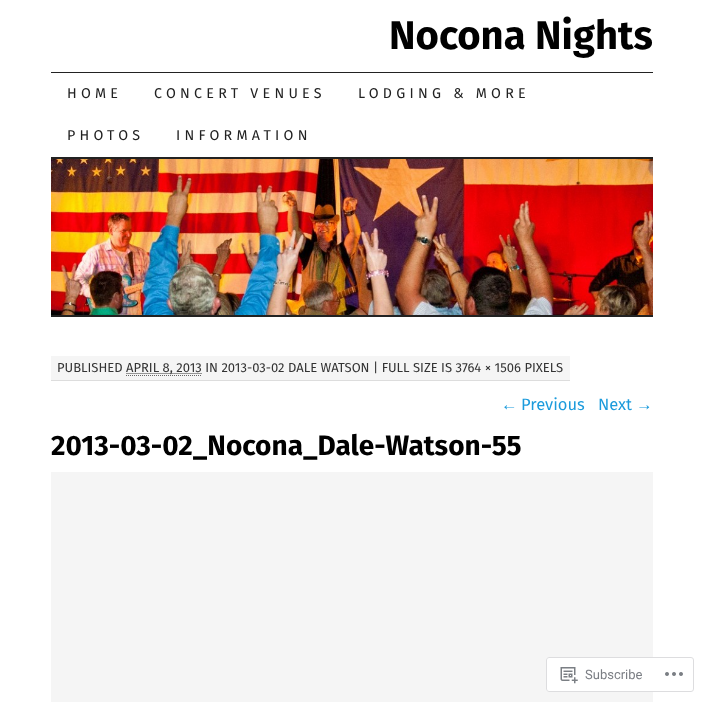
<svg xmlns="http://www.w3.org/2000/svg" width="704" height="702">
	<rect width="100%" height="100%" fill="#FFFFFF" />
	<text x="389" y="49" font-family="Fira Sans" font-size="40" font-weight="700" fill="#000000">Nocona Nights</text>
	<rect x="51" y="72" width="602" height="1" fill="#222222" />
	<rect x="51" y="157" width="602" height="2" fill="#222222" />
	<g font-family="Fira Sans" font-size="14.25" letter-spacing="4.25" fill="#222222">
		<text x="67" y="98">HOME</text>
		<text x="154" y="98">CONCERT VENUES</text>
		<text x="358" y="98">LODGING &amp; MORE</text>
		<text x="67" y="140">PHOTOS</text>
		<text x="176" y="140">INFORMATION</text>
	</g>
	<image x="51" y="159" width="602" height="156" href="assets/img1.png" />
	<rect x="51" y="315" width="602" height="2" fill="#222222" />
	<rect x="51" y="356" width="519" height="24" fill="#F5F5F5" />
	<rect x="51" y="380" width="519" height="1" fill="#DDDDDD" />
	<text x="57" y="372" font-family="Fira Sans" font-size="13" fill="#333333">PUBLISHED</text>
	<path d="M126.5 373.5H202" fill="none" stroke="#333333" stroke-dasharray="1 1" />
	<text x="126" y="372" font-family="Fira Sans" font-size="13" fill="#333333">APRIL 8, 2013 IN 2013-03-02 DALE WATSON | FULL SIZE IS 3764 × 1506 PIXELS</text>
	<path d="M126 375.5H202" fill="none" stroke="#666666" stroke-dasharray="1 1" />
	<text x="501" y="410" font-family="Liberation Sans" font-size="16.5" fill="#1C9BDC">←</text>
	<g font-family="Fira Sans" font-size="16.5" fill="#1C9BDC">
		<text x="521" y="410">Previous</text>
		<text x="598" y="410">Next</text>
	</g>
	<text x="636" y="410" font-family="Liberation Sans" font-size="16.5" fill="#1C9BDC">→</text>
	<text x="51" y="455" font-family="Fira Sans" font-size="28" font-weight="700" fill="#000000">2013-03-02_Nocona_Dale-Watson-55</text>
	<rect x="51" y="472" width="602" height="230" fill="#F5F5F5" />
	<rect x="546" y="657" width="148" height="35" rx="3" fill="#FFFFFF" fill-opacity="0.98" />
	<rect x="546.5" y="657.5" width="147" height="34" rx="2.5" fill="none" stroke="#DCDCDE" stroke-opacity="0.98" />
	<image x="560" y="667" width="18" height="17" href="assets/img2.png" />
	<text x="585" y="679" font-family="Roboto" font-size="13" fill="#7B7E84">Subscribe</text>
	<image x="665" y="672" width="18" height="4" href="assets/img3.png" />
</svg>
